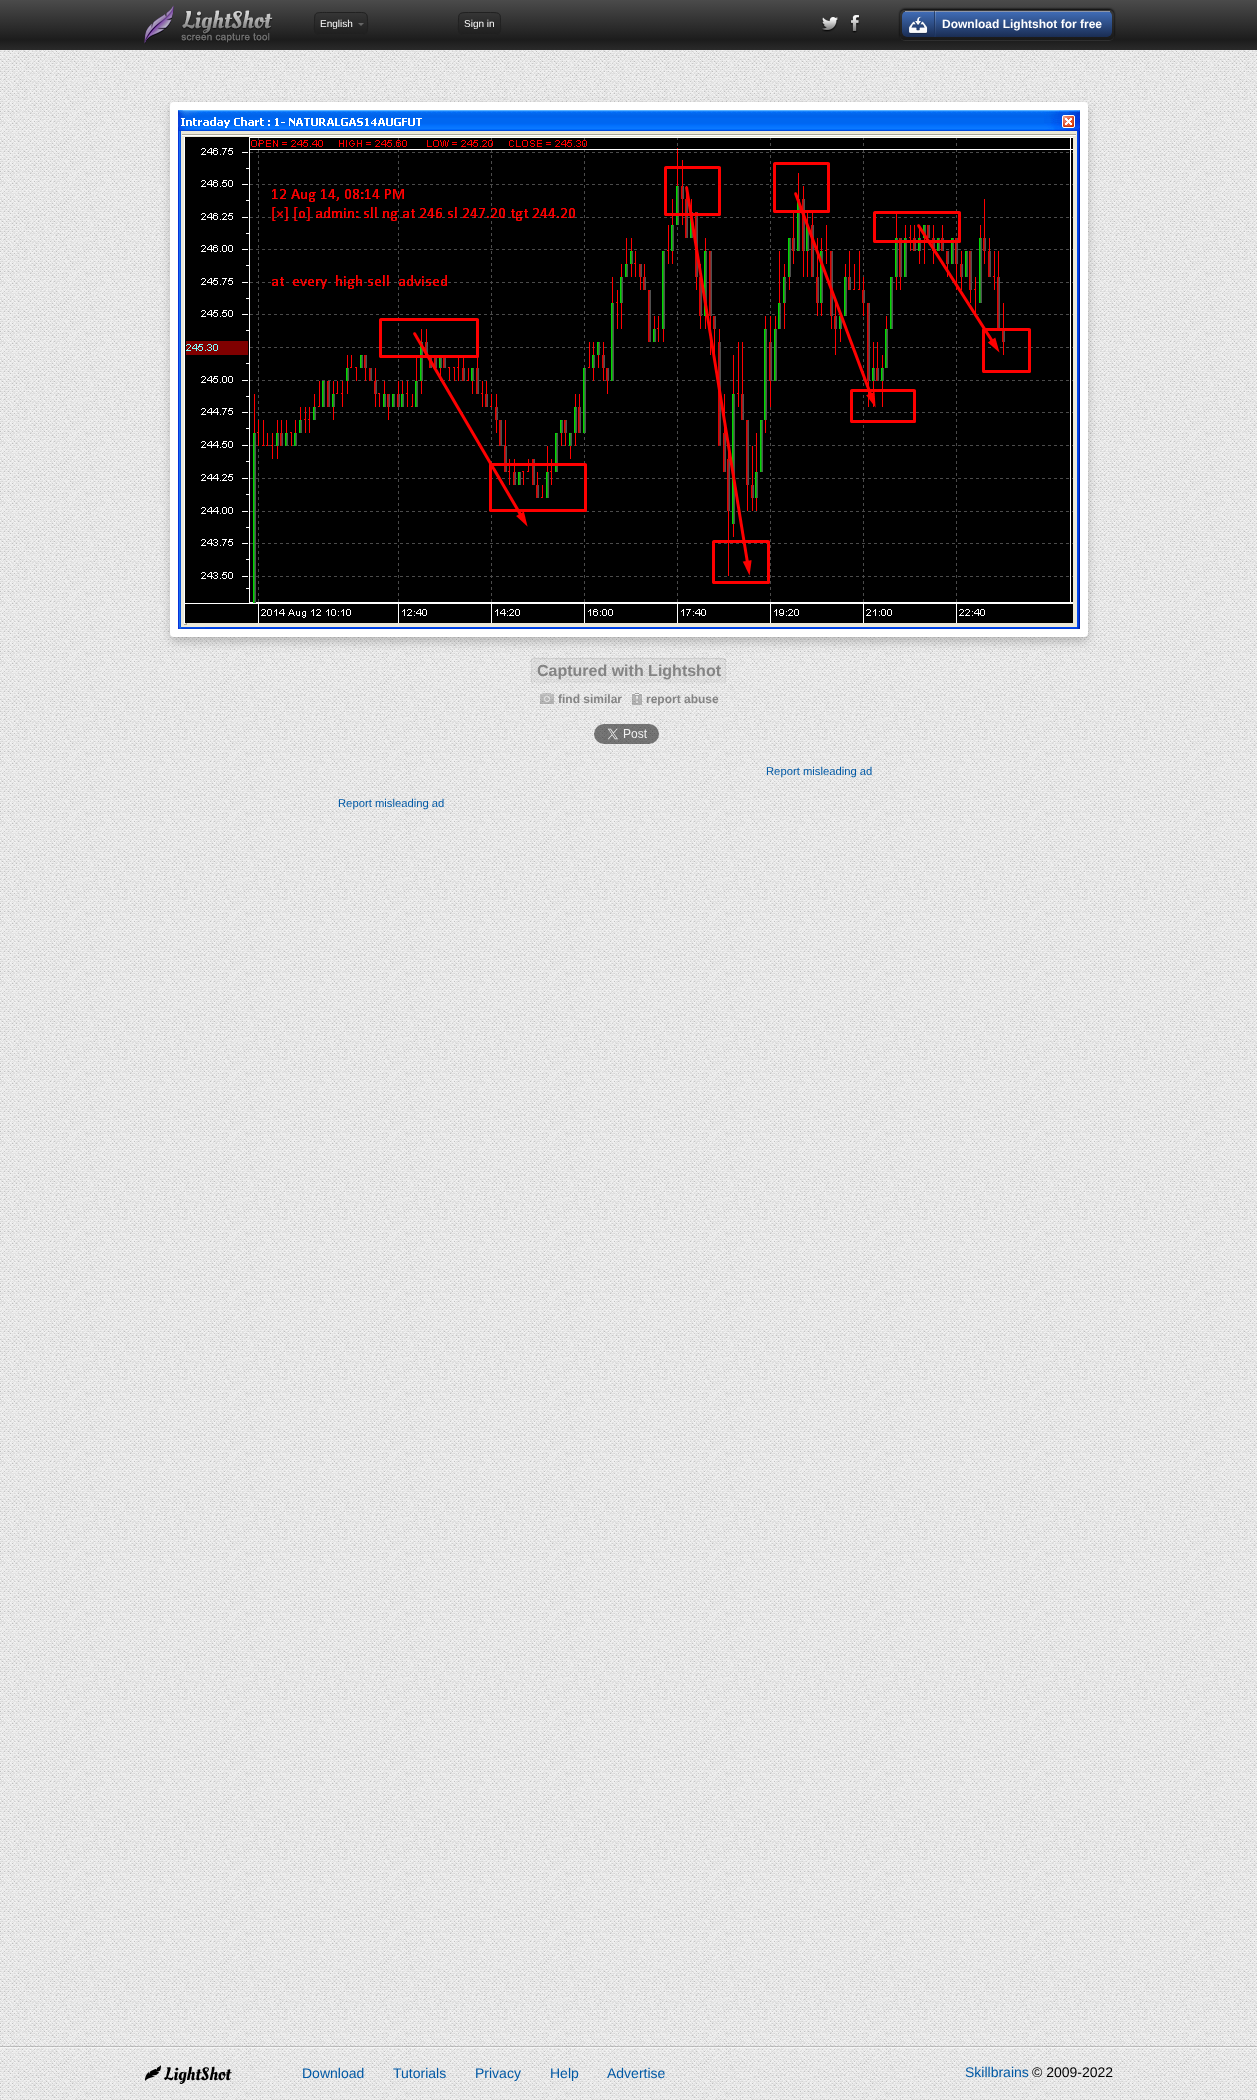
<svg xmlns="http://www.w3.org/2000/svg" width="1257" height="2100">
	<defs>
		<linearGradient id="g1" gradientUnits="userSpaceOnUse" x1="629" y1="0" x2="629" y2="50"><stop offset="0" stop-color="#4B4B4B" /><stop offset="0.8" stop-color="#1C1C1C" /><stop offset="1" stop-color="#2A2A2A" /></linearGradient>
		<clipPath id="clip1"><path d="M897 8H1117V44H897ZM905 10H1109C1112 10 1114 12 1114 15V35C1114 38 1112 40 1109 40H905C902 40 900 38 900 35V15C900 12 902 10 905 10Z" clip-rule="evenodd" /></clipPath>
		<clipPath id="clip2"><path d="M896 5H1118V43H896ZM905 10H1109C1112 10 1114 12 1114 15V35C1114 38 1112 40 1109 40H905C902 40 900 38 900 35V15C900 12 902 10 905 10Z" clip-rule="evenodd" /></clipPath>
		<clipPath id="clip3"><rect x="902" y="11" width="210" height="26" rx="5" /></clipPath>
		<linearGradient id="g2" gradientUnits="userSpaceOnUse" x1="1007" y1="-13" x2="1007" y2="12"><stop offset="0" stop-color="#406CB6" /><stop offset="1" stop-color="#1B2D54" /></linearGradient>
		<linearGradient id="g3" gradientUnits="userSpaceOnUse" x1="1007" y1="12" x2="1007" y2="37"><stop offset="0" stop-color="#406DB8" stop-opacity="0.98" /><stop offset="1" stop-color="#1A2D54" stop-opacity="0.98" /></linearGradient>
		<clipPath id="clip4"><path d="M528 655H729V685H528ZM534 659H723C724.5 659 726 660.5 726 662V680C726 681.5 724.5 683 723 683H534C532.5 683 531 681.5 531 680V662C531 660.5 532.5 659 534 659Z" clip-rule="evenodd" /></clipPath>
	</defs>
	<rect width="100%" height="100%" fill="#FFFFFF" />
	<image x="0" y="50" width="1257" height="2050" href="assets/img1.png" />
	<rect x="0" y="0" width="1257" height="50" fill="url(#g1)" />
	<image x="144" y="5" width="129" height="39" href="assets/img2.png" />
	<rect x="314" y="12" width="54" height="23" rx="5" fill="#000000" fill-opacity="0.1" />
	<path d="M366 33C365.5 34 364 34.5 363 34.5H319C318 34.5 316.5 34 316 33" fill="none" stroke="#222222" />
	<path d="M316 33C313.5 31 314.5 26.5 314.5 23.5C314.5 12 314.5 12.5 326.5 12.5H355.5C365.5 12.5 367.5 11.5 367.5 21.5C367.5 24.5 368.5 30.5 366 33" fill="none" stroke="#212121" />
	<text x="320" y="27" font-family="Liberation Sans" font-size="10" fill="#FFFFFF">English</text>
	<path d="M358 23H364L361 26Z" fill="#666666" />
	<rect x="458" y="12" width="43" height="23" rx="5" fill="#000000" fill-opacity="0.1" />
	<path d="M499 33C498.5 34 497 34.5 496 34.5H463C462 34.5 460.5 34 460 33" fill="none" stroke="#222222" />
	<path d="M460 33C457.5 31 458.5 26.5 458.5 23.5C458.5 13.5 458 12.5 468.5 12.5H490.5C501 12.5 500.5 13.5 500.5 23.5C500.5 26.5 501.5 31 499 33" fill="none" stroke="#212121" />
	<text x="464" y="27" font-family="Liberation Sans" font-size="10" fill="#FFFFFF">Sign in</text>
	<image x="822" y="17" width="16" height="15" href="assets/img3.png" />
	<image x="850" y="15" width="10" height="18" href="assets/img4.png" />
	<g clip-path="url(#clip1)">
		<rect x="900" y="11" width="214" height="30" rx="5" fill="#FFFFFF" fill-opacity="0.1" filter="blur(0.5px)" />
	</g>
	<g clip-path="url(#clip2)">
		<rect x="900" y="9" width="214" height="30" rx="5" fill="#000000" fill-opacity="0.99" filter="blur(1px)" />
	</g>
	<rect x="900" y="10" width="214" height="30" rx="5" fill="#000000" fill-opacity="0.11" />
	<g clip-path="url(#clip3)">
		<rect x="902" y="11" width="210" height="1" fill="url(#g2)" />
		<path d="M902 12H1112V32C1112 35 1110 37 1107 37H907C904 37 902 35 902 32Z" fill="url(#g3)" />
	</g>
	<rect x="905" y="11" width="205" height="1" fill="#FBFBFB" fill-opacity="0.5" />
	<image x="909" y="16" width="19" height="18" href="assets/img5.png" />
	<image x="934" y="11" width="2" height="26" href="assets/img6.png" />
	<text x="942" y="28" font-family="Liberation Sans" font-size="12" font-weight="700" fill="#FFFFFF">Download Lightshot for free</text>
	<rect x="170" y="107" width="918" height="535" rx="4" fill="#000000" fill-opacity="0.2" filter="blur(5px)" />
	<rect x="170" y="102" width="918" height="535" rx="4" fill="#FFFFFF" />
	<image x="178" y="110" width="902" height="519" href="assets/img7.png" />
	<g clip-path="url(#clip4)">
		<rect x="531" y="658" width="195" height="24" rx="3" fill="#000000" fill-opacity="0.12" filter="blur(0.5px)" />
	</g>
	<rect x="531" y="659" width="195" height="24" fill="#000000" fill-opacity="0.04" />
	<rect x="725" y="661" width="1" height="21" fill="#000000" fill-opacity="0.04" />
	<rect x="531" y="661" width="1" height="21" fill="#000000" fill-opacity="0.04" />
	<text x="537" y="676" font-family="Liberation Sans" font-size="16" font-weight="700" fill="#848484">Captured with Lightshot</text>
	<image x="540" y="693" width="14" height="11" href="assets/img8.png" />
	<text x="558" y="703" font-family="Liberation Sans" font-size="12" font-weight="700" fill="#848484">find similar</text>
	<image x="632" y="693" width="10" height="12" href="assets/img9.png" />
	<text x="646" y="703" font-family="Liberation Sans" font-size="12" font-weight="700" fill="#848484">report abuse</text>
	<image x="594" y="724" width="65" height="20" href="assets/img10.png" />
	<g font-family="Liberation Sans" font-size="11.25" fill="#0059A5">
		<text x="766" y="775">Report misleading ad</text>
		<text x="338" y="807">Report misleading ad</text>
	</g>
	<rect x="0" y="2046" width="1257" height="1" fill="#000000" fill-opacity="0.2" />
	<rect x="0" y="2047" width="1257" height="1" fill="#FFFFFF" fill-opacity="0.6" />
	<image x="145" y="2065" width="87" height="19" href="assets/img11.png" />
	<g font-family="Liberation Sans" font-size="14" fill="#0059A5">
		<text x="302" y="2078">Download</text>
		<text x="393" y="2078">Tutorials</text>
		<text x="475" y="2078">Privacy</text>
		<text x="550" y="2078">Help</text>
		<text x="607" y="2078">Advertise</text>
		<text x="965" y="2077">Skillbrains</text>
	</g>
	<text x="1032" y="2077" font-family="Liberation Sans" font-size="14" fill="#000000">© 2009-2022</text>
</svg>
